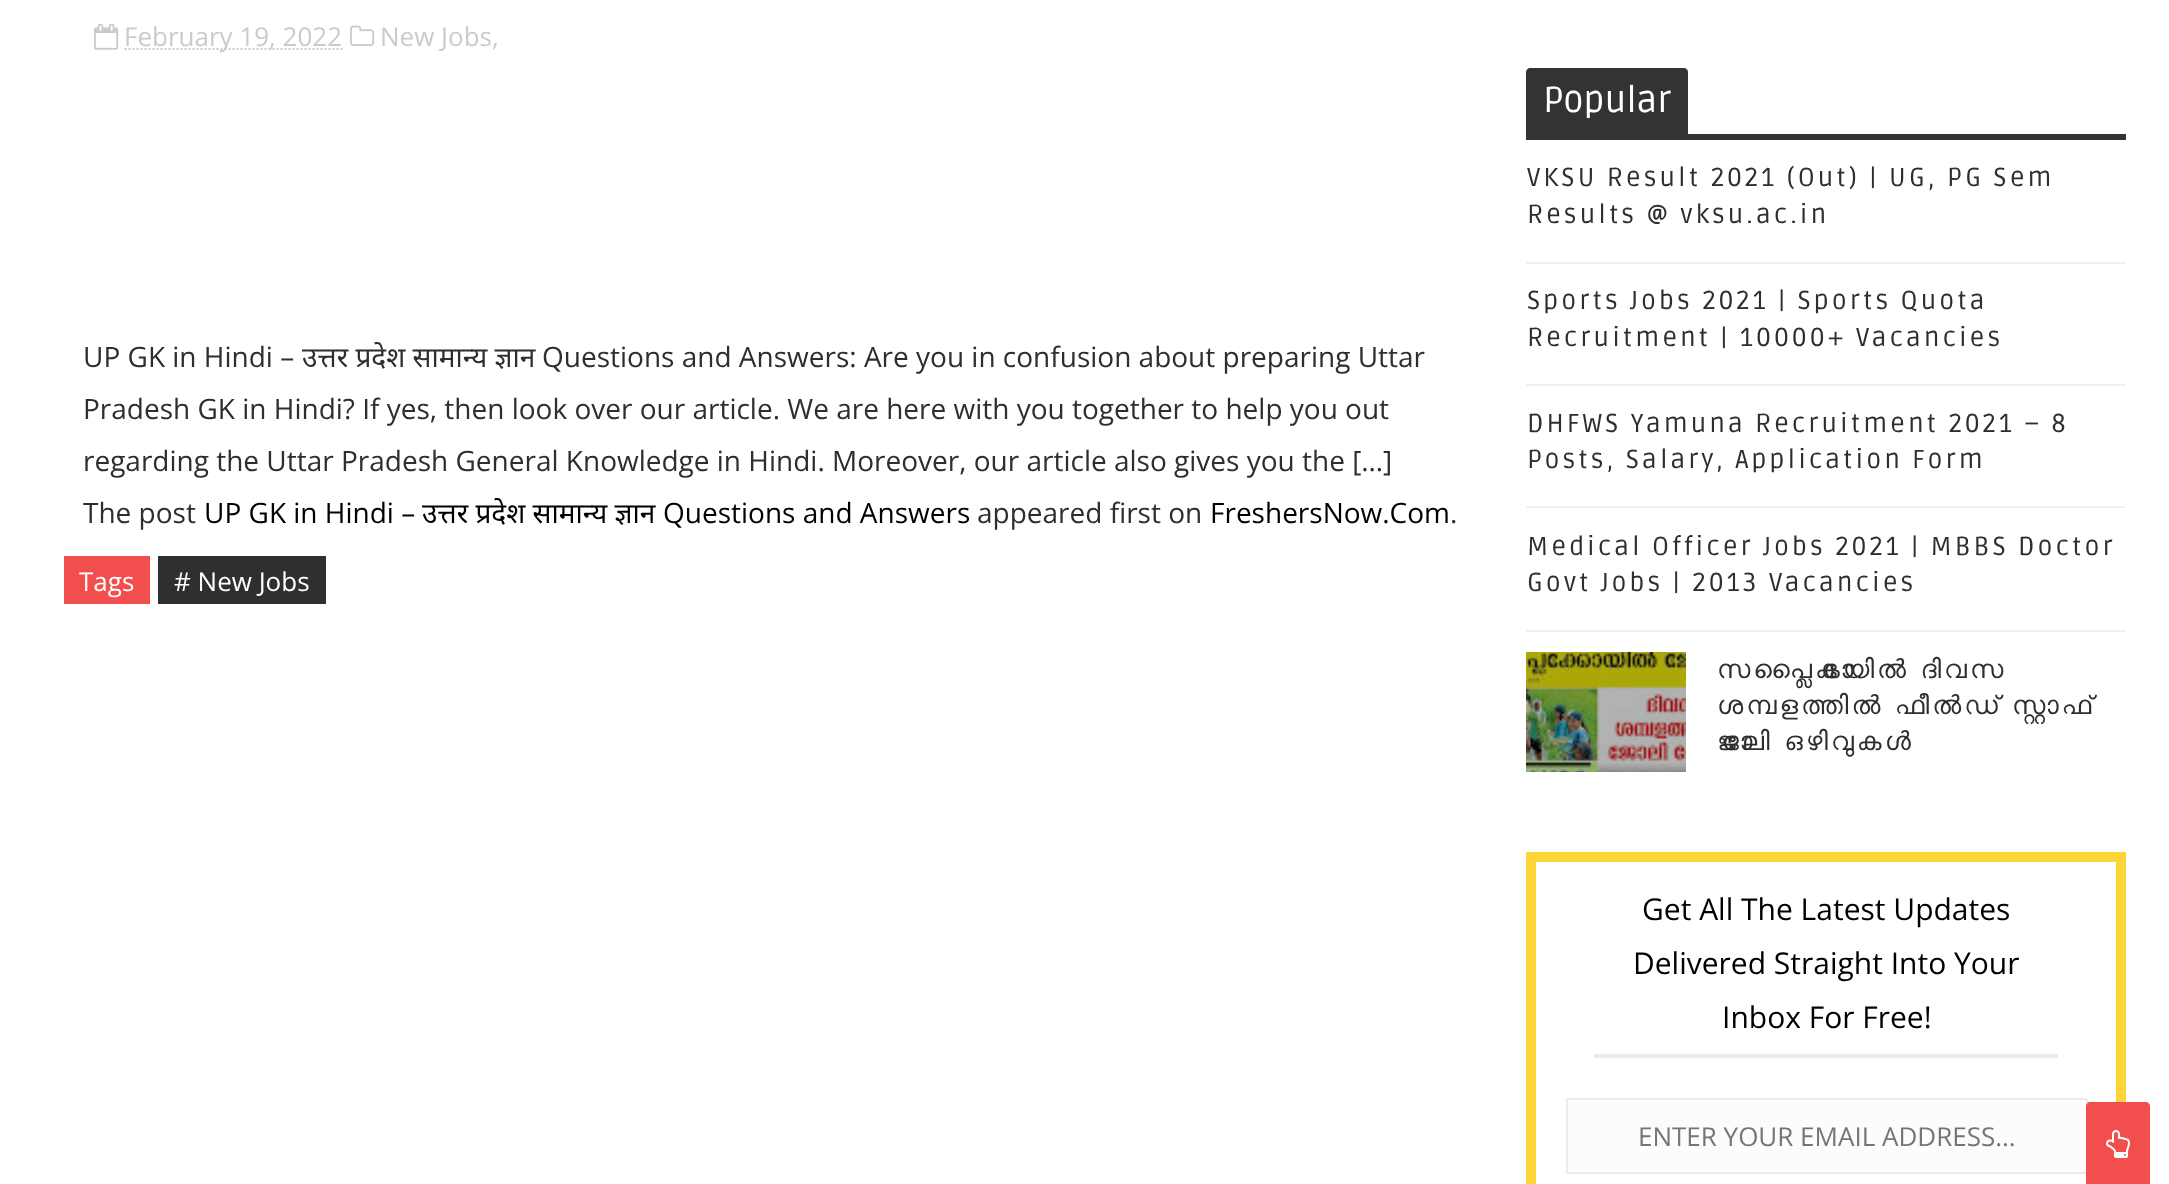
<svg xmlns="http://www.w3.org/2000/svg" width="2169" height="1184">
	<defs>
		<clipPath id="clip1"><rect x="1526" y="632" width="600" height="140" /></clipPath>
	</defs>
	<rect width="100%" height="100%" fill="#FFFFFF" />
	<image x="94" y="23" width="25" height="27" href="assets/img1.png" />
	<path d="M124.5 49H342.5" fill="none" stroke="#CBCBCB" stroke-width="2" stroke-dasharray="2 2" />
	<text x="124" y="46" font-family="Open Sans" font-size="26" fill="#CBCBCB">February 19, 2022</text>
	<image x="350" y="25" width="25" height="21" href="assets/img2.png" />
	<text x="380" y="46" font-family="Open Sans" font-size="26" fill="#CBCBCB">New Jobs,</text>
	<text x="83" y="367" font-family="Open Sans" font-size="28" fill="#2E2E2E">UP GK in Hindi –</text>
	<text x="302" y="367" font-family="Noto Sans" font-size="28" fill="#2E2E2E">उत्तर प्रदेश सामान्य ज्ञान</text>
	<g font-family="Open Sans" font-size="28" fill="#2E2E2E">
		<text x="542" y="367">Questions and Answers: Are you in confusion about preparing Uttar</text>
		<text x="83" y="419">Pradesh GK in Hindi? If yes, then look over our article. We are here with you together to help you out</text>
		<text x="83" y="471">regarding the Uttar Pradesh General Knowledge in Hindi. Moreover, our article also gives you the […]</text>
		<text x="83" y="523">The post</text>
	</g>
	<text x="204" y="523" font-family="Open Sans" font-size="28" fill="#000000">UP GK in Hindi –</text>
	<text x="422" y="523" font-family="Noto Sans" font-size="28" fill="#000000">उत्तर प्रदेश सामान्य ज्ञान</text>
	<text x="663" y="523" font-family="Open Sans" font-size="28" fill="#000000">Questions and Answers</text>
	<text x="977" y="523" font-family="Open Sans" font-size="28" fill="#2E2E2E">appeared first on</text>
	<text x="1210" y="523" font-family="Open Sans" font-size="28" fill="#000000">FreshersNow.Com</text>
	<text x="1450" y="523" font-family="Open Sans" font-size="28" fill="#2E2E2E">.</text>
	<rect x="64" y="556" width="86" height="48" fill="#F34E4E" />
	<text x="79" y="591" font-family="Open Sans" font-size="26" fill="#FFFFFF">Tags</text>
	<rect x="158" y="556" width="168" height="48" fill="#2F2F2F" />
	<text x="174" y="591" font-family="Open Sans" font-size="26" fill="#FFFFFF"># New Jobs</text>
	<rect x="1526" y="134" width="600" height="6" fill="#333333" />
	<path d="M1530 68H1684C1686 68 1688 70 1688 72V134H1526V72C1526 70 1528 68 1530 68Z" fill="#333333" />
	<text x="1543" y="112" font-family="Ruda" font-size="36" fill="#FFFFFF">Popular</text>
	<g font-family="Ruda" font-size="26" letter-spacing="3" fill="#2E2E2E">
		<text x="1527" y="186">VKSU Result 2021 (Out) | UG, PG Sem</text>
		<text x="1527" y="223">Results @ vksu.ac.in</text>
	</g>
	<rect x="1526" y="262" width="600" height="2" fill="#F2F2F2" />
	<g font-family="Ruda" font-size="26" letter-spacing="3" fill="#2E2E2E">
		<text x="1527" y="309">Sports Jobs 2021 | Sports Quota</text>
		<text x="1527" y="346">Recruitment | 10000+ Vacancies</text>
	</g>
	<rect x="1526" y="384" width="600" height="2" fill="#F2F2F2" />
	<g font-family="Ruda" font-size="26" letter-spacing="3" fill="#2E2E2E">
		<text x="1527" y="432">DHFWS Yamuna Recruitment 2021 – 8</text>
		<text x="1527" y="468">Posts, Salary, Application Form</text>
	</g>
	<rect x="1526" y="506" width="600" height="2" fill="#F2F2F2" />
	<g font-family="Ruda" font-size="26" letter-spacing="3" fill="#2E2E2E">
		<text x="1527" y="555">Medical Officer Jobs 2021 | MBBS Doctor</text>
		<text x="1527" y="591">Govt Jobs | 2013 Vacancies</text>
	</g>
	<rect x="1526" y="630" width="600" height="2" fill="#F2F2F2" />
	<image x="1526" y="652" width="160" height="120" href="assets/img3.png" />
	<text x="1717" y="678" word-spacing="-2" font-family="FreeSans" font-size="26" letter-spacing="3" fill="#2E2E2E">സപ്ലൈകോയില്‍ ദിവസ</text>
	<g clip-path="url(#clip1)">
		<text x="1717" y="714" word-spacing="-2" font-family="FreeSans" font-size="26" letter-spacing="3" fill="#2E2E2E">ശമ്പളത്തിൽ ഫീല്‍ഡ് സ്റ്റാഫ്</text>
	</g>
	<text x="1717" y="750" word-spacing="-2" font-family="FreeSans" font-size="26" letter-spacing="3" fill="#2E2E2E">ജോലി ഒഴിവുകൾ</text>
	<path d="M1531 857H2121V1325H1531Z" fill="none" stroke="#FFD439" stroke-width="10" />
	<rect x="1594" y="1054" width="464" height="4" fill="#EBEBEB" />
	<g font-family="Open Sans" font-size="30" fill="#000000">
		<text x="1642" y="920">Get All The Latest Updates</text>
		<text x="1633" y="974">Delivered Straight Into Your</text>
		<text x="1722" y="1028">Inbox For Free!</text>
	</g>
	<rect x="1567" y="1099" width="520" height="74" rx="1" fill="#FCFCFC" stroke="#EBEBEB" stroke-width="2" />
	<text x="1638" y="1146" font-family="Open Sans" font-size="26" fill="#757575">ENTER YOUR EMAIL ADDRESS...</text>
	<path d="M2090 1102H2146C2148 1102 2150 1104 2150 1106V1184H2086V1106C2086 1104 2088 1102 2090 1102Z" fill="#F34E4E" />
	<image x="2106" y="1130" width="24" height="28" href="assets/img4.png" />
</svg>
